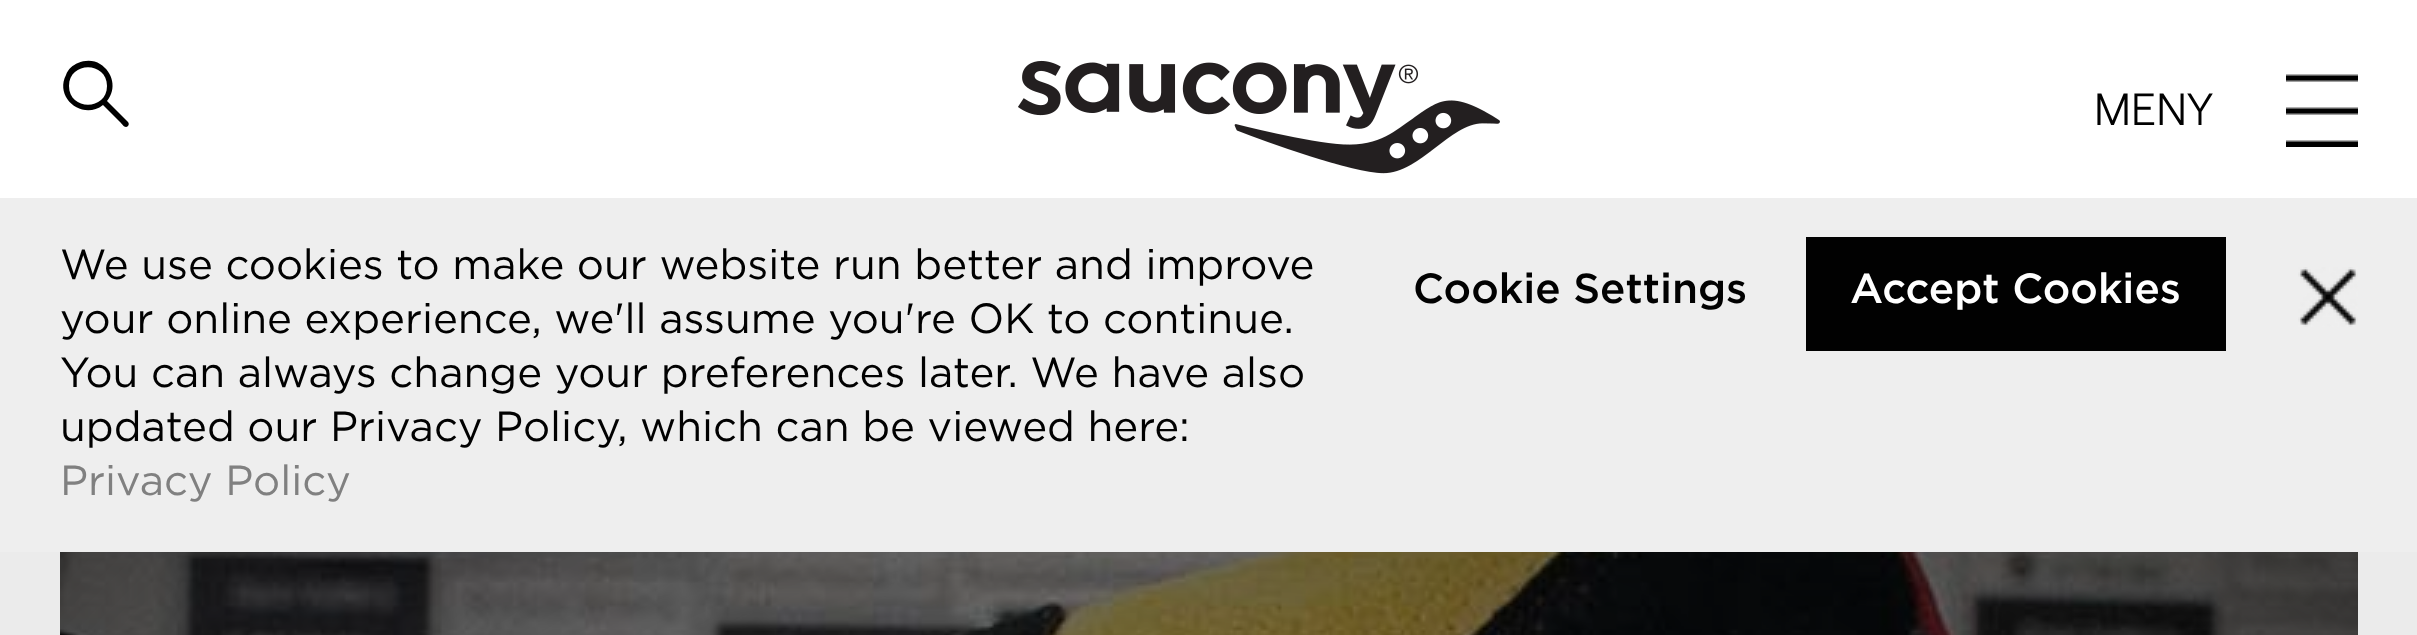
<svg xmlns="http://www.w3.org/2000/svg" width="2417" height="635">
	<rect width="100%" height="100%" fill="#EBEBEB" />
	<rect x="0" y="0" width="2417" height="198" fill="#FFFFFF" />
	<path d="M128 122L107 101C117 89 113 72 100 64C94 60 85 60 78 63C73 65 68 69 66 75C54 98 83 121 103 105L121 123C122 124 125 129 128 126C129 125 129 123 128 122ZM107 86C107 111 69 111 69 86C69 61 107 61 107 86Z" fill="#000000" />
	<image x="1018" y="60" width="482" height="114" href="assets/img1.png" />
	<text x="2094" y="125" font-family="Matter" font-size="45" font-weight="300" fill="#010101">MENY</text>
	<image x="2286" y="74" width="72" height="73" href="assets/img2.png" />
	<image x="60" y="552" width="2298" height="83" href="assets/img3.png" />
	<rect x="0" y="198" width="2417" height="354" fill="#EEEEEE" />
	<g font-family="Gotham" font-size="42" fill="#010101">
		<text x="60" y="279">We use cookies to make our website run better and improve</text>
		<text x="60" y="333">your online experience, we'll assume you're OK to continue.</text>
		<text x="60" y="387">You can always change your preferences later. We have also</text>
		<text x="60" y="441">updated our Privacy Policy, which can be viewed here:</text>
	</g>
	<text x="60" y="495" font-family="Gotham" font-size="42" fill="#808080">Privacy Policy</text>
	<text x="1413" y="303" font-family="Gotham" font-size="42" font-weight="500" fill="#010101">Cookie Settings</text>
	<rect x="1806" y="237" width="420" height="114" fill="#010101" />
	<text x="1850" y="303" font-family="Gotham" font-size="42" font-weight="500" fill="#FFFFFF">Accept Cookies</text>
	<image x="2298" y="267" width="60" height="60" href="assets/img4.png" />
</svg>
